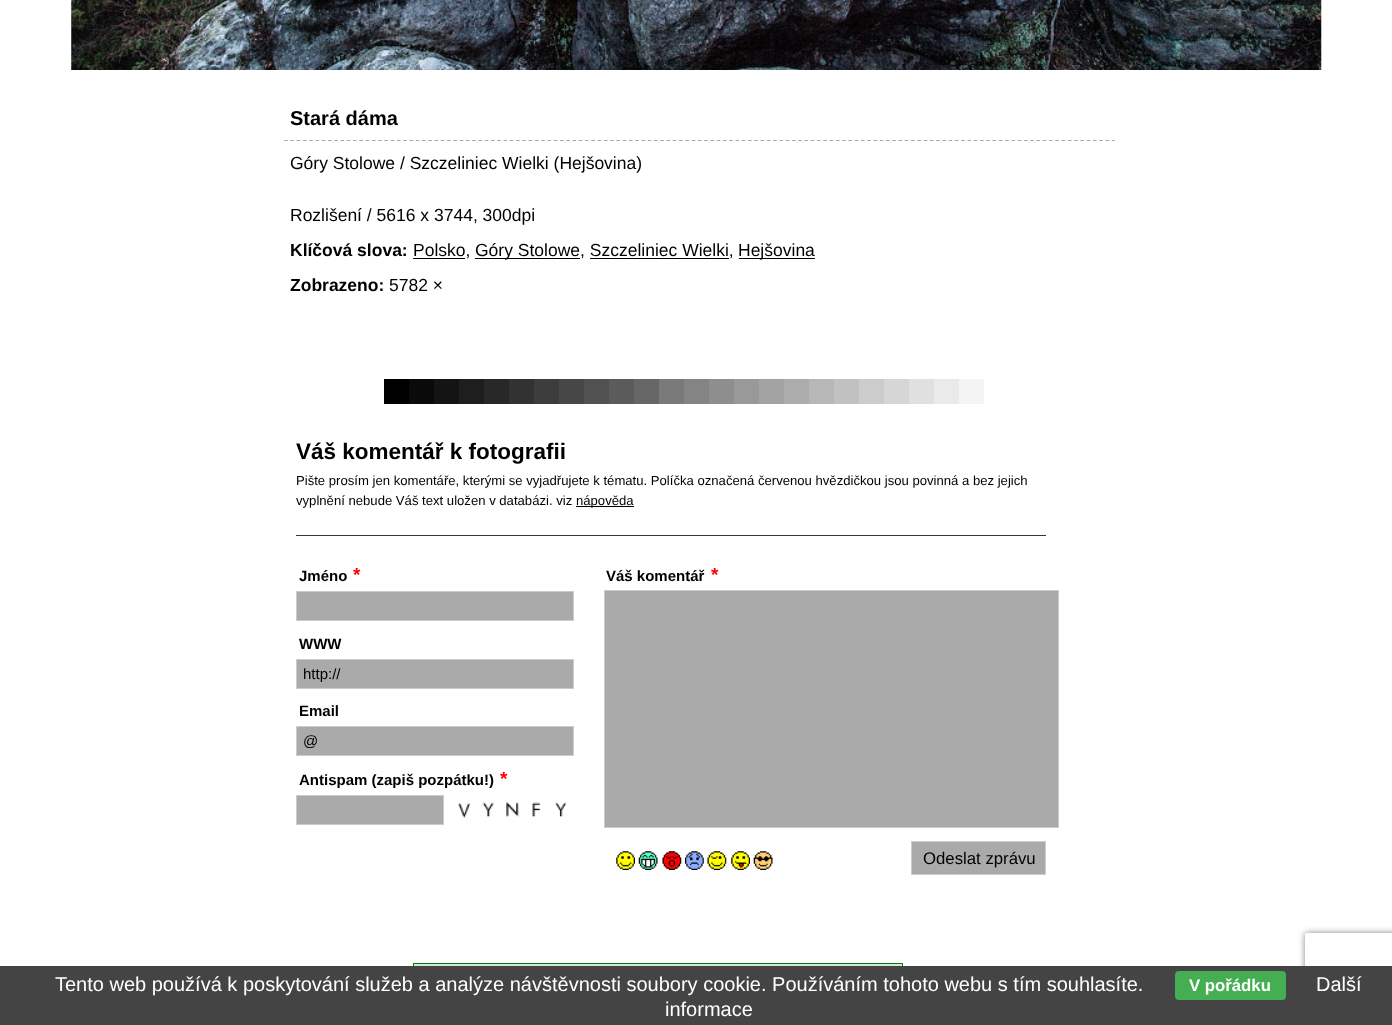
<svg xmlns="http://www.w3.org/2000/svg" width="1392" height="1025">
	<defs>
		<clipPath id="clip1"><path d="M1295 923H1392V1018H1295ZM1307.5 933H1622.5C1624 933 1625 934 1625 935.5V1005.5C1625 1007 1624 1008 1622.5 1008H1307.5C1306 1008 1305 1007 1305 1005.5V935.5C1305 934 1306 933 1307.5 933Z" clip-rule="evenodd" /></clipPath>
	</defs>
	<rect width="100%" height="100%" fill="#FFFFFF" />
	<image x="71" y="0" width="1251" height="70" href="assets/img1.png" />
	<path d="M284 140.5H1115" fill="none" stroke="#AAAAAA" stroke-width="1.2" stroke-dasharray="3.75 2.52" />
	<text x="290" y="125" font-family="Liberation Sans" font-size="20" font-weight="700" fill="#000000">Stará dáma</text>
	<g font-family="Liberation Sans" font-size="17.5" fill="#000000">
		<text x="290" y="169">Góry Stolowe / Szczeliniec Wielki (Hejšovina)</text>
		<text x="290" y="221">Rozlišení / 5616 x 3744, 300dpi</text>
	</g>
	<text x="290" y="256" font-family="Liberation Sans" font-size="17.5" font-weight="700" fill="#000000">Klíčová slova:</text>
	<rect x="413" y="258" width="52" height="1" fill="#000000" />
	<text x="413" y="256" font-family="Liberation Sans" font-size="17.5" fill="#000000">Polsko,</text>
	<rect x="475" y="258" width="105" height="1" fill="#000000" />
	<text x="475" y="256" font-family="Liberation Sans" font-size="17.5" fill="#000000">Góry Stolowe, Szczeliniec Wielki,</text>
	<rect x="739" y="258" width="76" height="1" fill="#000000" />
	<text x="738" y="256" font-family="Liberation Sans" font-size="17.5" fill="#000000">Hejšovina</text>
	<rect x="590" y="258" width="139" height="1" fill="#000000" />
	<text x="290" y="291" font-family="Liberation Sans" font-size="17.5" font-weight="700" fill="#000000">Zobrazeno:</text>
	<text x="389" y="291" font-family="Liberation Sans" font-size="17.5" fill="#000000">5782 ×</text>
	<rect x="384" y="379" width="25" height="25" fill="#000000" />
	<rect x="409" y="379" width="25" height="25" fill="#0A0A0A" />
	<rect x="434" y="379" width="25" height="25" fill="#141414" />
	<rect x="459" y="379" width="25" height="25" fill="#1E1E1E" />
	<rect x="484" y="379" width="25" height="25" fill="#282828" />
	<rect x="509" y="379" width="25" height="25" fill="#323232" />
	<rect x="534" y="379" width="25" height="25" fill="#3D3D3D" />
	<rect x="559" y="379" width="25" height="25" fill="#474747" />
	<rect x="584" y="379" width="25" height="25" fill="#515151" />
	<rect x="609" y="379" width="25" height="25" fill="#5B5B5B" />
	<rect x="634" y="379" width="25" height="25" fill="#666666" />
	<rect x="659" y="379" width="25" height="25" fill="#7A7A7A" />
	<rect x="684" y="379" width="25" height="25" fill="#848484" />
	<rect x="709" y="379" width="25" height="25" fill="#8E8E8E" />
	<rect x="734" y="379" width="25" height="25" fill="#999999" />
	<rect x="759" y="379" width="25" height="25" fill="#A3A3A3" />
	<rect x="784" y="379" width="25" height="25" fill="#ADADAD" />
	<rect x="809" y="379" width="25" height="25" fill="#B7B7B7" />
	<rect x="834" y="379" width="25" height="25" fill="#C1C1C1" />
	<rect x="859" y="379" width="25" height="25" fill="#CCCCCC" />
	<rect x="884" y="379" width="25" height="25" fill="#D6D6D6" />
	<rect x="909" y="379" width="25" height="25" fill="#E0E0E0" />
	<rect x="934" y="379" width="25" height="25" fill="#EAEAEA" />
	<rect x="959" y="379" width="25" height="25" fill="#F4F4F4" />
	<text x="296" y="459" font-family="Liberation Sans" font-size="22.5" font-weight="700" fill="#000000">Váš komentář k fotografii</text>
	<g font-family="Liberation Sans" font-size="13.12" fill="#000000">
		<text x="296" y="485">Pište prosím jen komentáře, kterými se vyjadřujete k tématu. Políčka označená červenou hvězdičkou jsou povinná a bez jejich</text>
		<text x="296" y="505">vyplnění nebude Váš text uložen v databázi. viz</text>
	</g>
	<rect x="576" y="506" width="58" height="1" fill="#000000" />
	<text x="576" y="505" font-family="Liberation Sans" font-size="13.12" fill="#000000">nápověda</text>
	<rect x="296" y="535" width="750" height="1" fill="#373737" />
	<text x="299" y="581" font-family="Liberation Sans" font-size="15" font-weight="700" fill="#000000">Jméno</text>
	<text x="353" y="581" font-family="Liberation Sans" font-size="19" font-weight="700" fill="#FF0000">*</text>
	<rect x="296.5" y="591.5" width="277" height="29" fill="#AAAAAA" stroke="#CCCCCC" />
	<text x="299" y="649" font-family="Liberation Sans" font-size="15" font-weight="700" fill="#000000">WWW</text>
	<rect x="296.5" y="659.5" width="277" height="29" fill="#AAAAAA" stroke="#CCCCCC" />
	<text x="303" y="679" font-family="Liberation Sans" font-size="15" fill="#000000">http://</text>
	<text x="299" y="716" font-family="Liberation Sans" font-size="15" font-weight="700" fill="#000000">Email</text>
	<rect x="296.5" y="726.5" width="277" height="29" fill="#AAAAAA" stroke="#CCCCCC" />
	<text x="303" y="746" font-family="Liberation Sans" font-size="15" fill="#000000">@</text>
	<text x="299" y="785" font-family="Liberation Sans" font-size="15" font-weight="700" fill="#000000">Antispam (zapiš pozpátku!)</text>
	<text x="500" y="785" font-family="Liberation Sans" font-size="19" font-weight="700" fill="#FF0000">*</text>
	<rect x="296.5" y="795.5" width="147" height="29" fill="#AAAAAA" stroke="#CCCCCC" />
	<image x="458" y="803" width="13" height="15" href="assets/img2.png" />
	<image x="482" y="802" width="12" height="15" href="assets/img3.png" />
	<image x="506" y="802" width="13" height="15" href="assets/img4.png" />
	<image x="532" y="802" width="9" height="15" href="assets/img5.png" />
	<image x="555" y="802" width="12" height="15" href="assets/img6.png" />
	<text x="606" y="581" font-family="Liberation Sans" font-size="15" font-weight="700" fill="#000000">Váš komentář</text>
	<text x="711" y="581" font-family="Liberation Sans" font-size="19" font-weight="700" fill="#FF0000">*</text>
	<rect x="604.5" y="590.5" width="454" height="237" fill="#AAAAAA" stroke="#CCCCCC" />
	<image x="616" y="851" width="19" height="19" href="assets/img7.png" />
	<image x="638" y="851" width="20" height="19" href="assets/img8.png" />
	<image x="662" y="851" width="20" height="19" href="assets/img9.png" />
	<image x="685" y="851" width="19" height="19" href="assets/img10.png" />
	<image x="707" y="851" width="20" height="19" href="assets/img11.png" />
	<image x="731" y="851" width="19" height="19" href="assets/img12.png" />
	<image x="753" y="851" width="20" height="19" href="assets/img13.png" />
	<rect x="911.5" y="841.5" width="134" height="33" fill="#AAAAAA" stroke="#CCCCCC" />
	<text x="923" y="864" font-family="Liberation Sans" font-size="16.75" fill="#000000">Odeslat zprávu</text>
	<g clip-path="url(#clip1)">
		<rect x="1305" y="933" width="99" height="75" rx="2.5" fill="#808080" filter="blur(3px)" />
	</g>
	<rect x="414" y="964" width="488" height="2" fill="#D4EAD4" />
	<rect x="413.5" y="963.5" width="489" height="34" fill="none" stroke="#008000" />
	<rect x="0" y="966" width="1392" height="59" fill="#444444" />
	<text x="55" y="991" font-family="Liberation Sans" font-size="20" fill="#FFFFFF">Tento web používá k poskytování služeb a analýze návštěvnosti soubory cookie. Používáním tohoto webu s tím souhlasíte.</text>
	<rect x="1175" y="971" width="111" height="29" rx="4" fill="#45AE52" />
	<text x="1189" y="991" font-family="Liberation Sans" font-size="16.75" font-weight="700" fill="#FFFFFF">V pořádku</text>
	<g font-family="Liberation Sans" font-size="20" fill="#FFFFFF">
		<text x="1316" y="991">Další</text>
		<text x="665" y="1016">informace</text>
	</g>
</svg>
